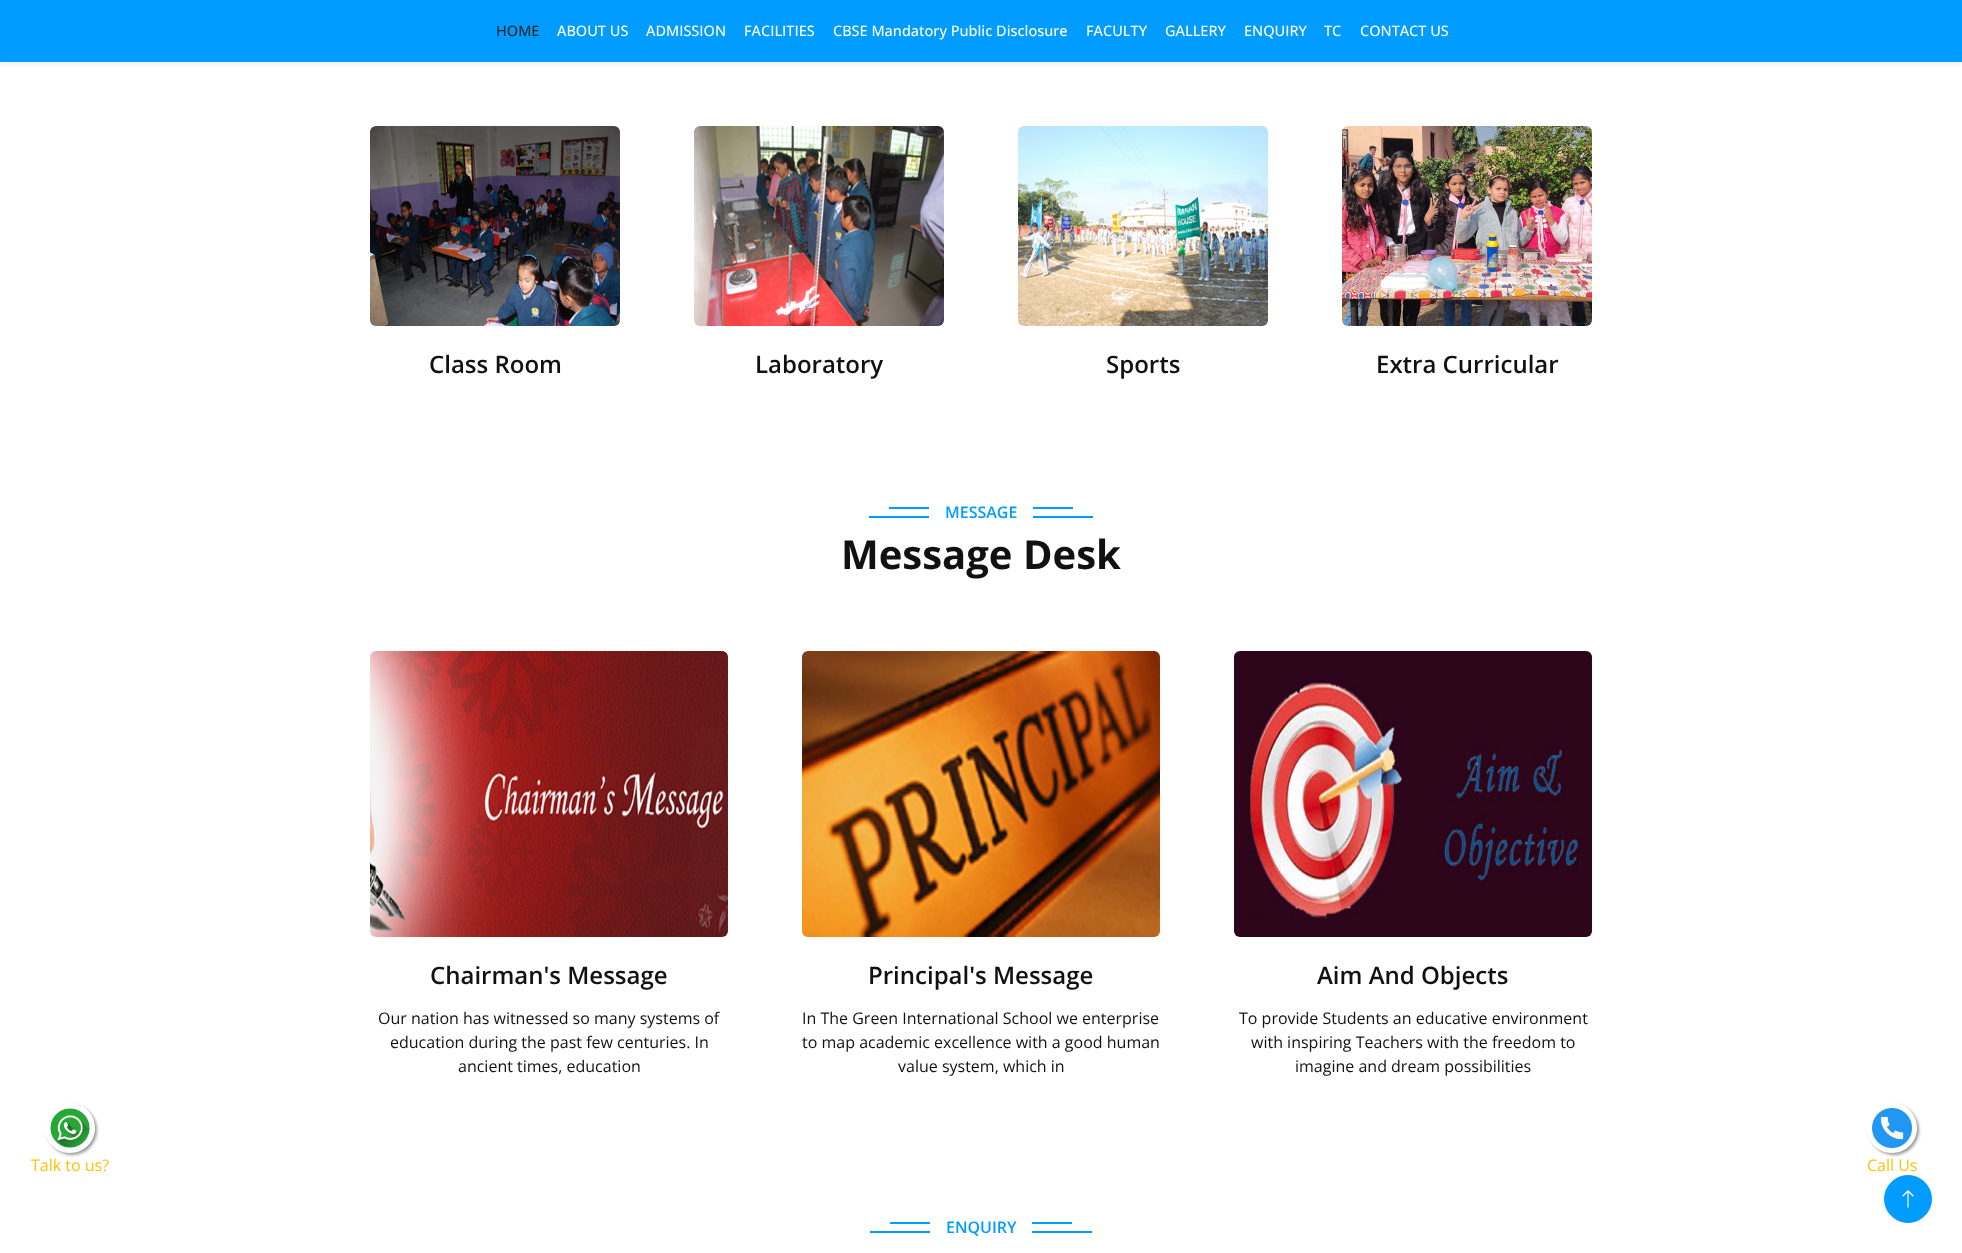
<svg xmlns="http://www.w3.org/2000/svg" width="1962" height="1253">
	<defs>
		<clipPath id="clip1"><path d="M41 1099H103V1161H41ZM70 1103C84 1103 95 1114 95 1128C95 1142 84 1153 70 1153C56 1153 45 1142 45 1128C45 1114 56 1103 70 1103Z" clip-rule="evenodd" /></clipPath>
		<clipPath id="clip2"><path d="M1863 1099H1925V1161H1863ZM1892 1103C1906 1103 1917 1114 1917 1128C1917 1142 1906 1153 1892 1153C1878 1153 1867 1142 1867 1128C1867 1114 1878 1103 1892 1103Z" clip-rule="evenodd" /></clipPath>
	</defs>
	<rect width="100%" height="100%" fill="#FFFFFF" />
	<rect x="0" y="2" width="1962" height="62" fill="#000000" fill-opacity="0.07" filter="blur(2px)" />
	<rect x="0" y="0" width="1962" height="62" fill="#009CFF" />
	<text x="496" y="36" font-family="Open Sans" font-size="14.5" font-weight="500" fill="#252525">HOME</text>
	<g font-family="Open Sans" font-size="14.5" font-weight="500" fill="#FFFFFF">
		<text x="557" y="36">ABOUT US</text>
		<text x="646" y="36">ADMISSION</text>
		<text x="744" y="36">FACILITIES</text>
		<text x="833" y="36">CBSE Mandatory Public Disclosure</text>
		<text x="1086" y="36">FACULTY</text>
		<text x="1165" y="36">GALLERY</text>
		<text x="1244" y="36">ENQUIRY</text>
		<text x="1324" y="36">TC</text>
		<text x="1360" y="36">CONTACT US</text>
	</g>
	<image x="370" y="126" width="250" height="200" href="assets/img1.png" />
	<text x="429" y="373" font-family="Open Sans" font-size="24" font-weight="600" fill="#111111">Class Room</text>
	<image x="694" y="126" width="250" height="200" href="assets/img2.png" />
	<text x="755" y="373" font-family="Open Sans" font-size="24" font-weight="600" fill="#111111">Laboratory</text>
	<image x="1018" y="126" width="250" height="200" href="assets/img3.png" />
	<text x="1106" y="373" font-family="Open Sans" font-size="24" font-weight="600" fill="#111111">Sports</text>
	<image x="1342" y="126" width="250" height="200" href="assets/img4.png" />
	<text x="1376" y="373" font-family="Open Sans" font-size="24" font-weight="600" fill="#111111">Extra Curricular</text>
	<rect x="889" y="507" width="184" height="2" fill="#009CFF" />
	<rect x="869" y="516" width="224" height="2" fill="#009CFF" />
	<rect x="929" y="507" width="104" height="11" fill="#FFFFFF" />
	<text x="945" y="518" font-family="Open Sans" font-size="16" font-weight="600" fill="#009CFF">MESSAGE</text>
	<text x="841" y="569" font-family="Open Sans" font-size="40" font-weight="700" fill="#111111">Message Desk</text>
	<image x="370" y="651" width="358" height="286" href="assets/img5.png" />
	<text x="430" y="984" font-family="Open Sans" font-size="24" font-weight="600" fill="#111111">Chairman's Message</text>
	<g font-family="Open Sans" font-size="16" fill="#111111">
		<text x="378" y="1024">Our nation has witnessed so many systems of</text>
		<text x="390" y="1048">education during the past few centuries. In</text>
		<text x="458" y="1072">ancient times, education</text>
	</g>
	<image x="802" y="651" width="358" height="286" href="assets/img6.png" />
	<text x="868" y="984" font-family="Open Sans" font-size="24" font-weight="600" fill="#111111">Principal's Message</text>
	<g font-family="Open Sans" font-size="16" fill="#111111">
		<text x="802" y="1024">In The Green International School we enterprise</text>
		<text x="802" y="1048">to map academic excellence with a good human</text>
		<text x="898" y="1072">value system, which in</text>
	</g>
	<image x="1234" y="651" width="358" height="286" href="assets/img7.png" />
	<text x="1317" y="984" font-family="Open Sans" font-size="24" font-weight="600" fill="#111111">Aim And Objects</text>
	<g font-family="Open Sans" font-size="16" fill="#111111">
		<text x="1239" y="1024">To provide Students an educative environment</text>
		<text x="1251" y="1048">with inspiring Teachers with the freedom to</text>
		<text x="1295" y="1072">imagine and dream possibilities</text>
	</g>
	<g clip-path="url(#clip1)">
		<rect x="47" y="1105" width="50" height="50" rx="25" fill="#999999" filter="blur(1.5px)" />
	</g>
	<image x="50" y="1108" width="40" height="40" href="assets/img8.png" />
	<text x="31" y="1171" font-family="Open Sans" font-size="16" fill="#FFC107">Talk to us?</text>
	<g clip-path="url(#clip2)">
		<rect x="1869" y="1105" width="50" height="50" rx="25" fill="#999999" filter="blur(1.5px)" />
	</g>
	<image x="1872" y="1108" width="40" height="40" href="assets/img9.png" />
	<text x="1867" y="1171" font-family="Open Sans" font-size="16" fill="#FFC107">Call Us</text>
	<circle cx="1908" cy="1199" r="23.5" fill="#009CFF" stroke="#009CFF" />
	<image x="1902" y="1190" width="12" height="18" href="assets/img10.png" />
	<rect x="890" y="1222" width="182" height="2" fill="#009CFF" />
	<rect x="870" y="1231" width="222" height="2" fill="#009CFF" />
	<rect x="930" y="1222" width="102" height="11" fill="#FFFFFF" />
	<text x="946" y="1233" font-family="Open Sans" font-size="16" font-weight="600" fill="#009CFF">ENQUIRY</text>
</svg>
